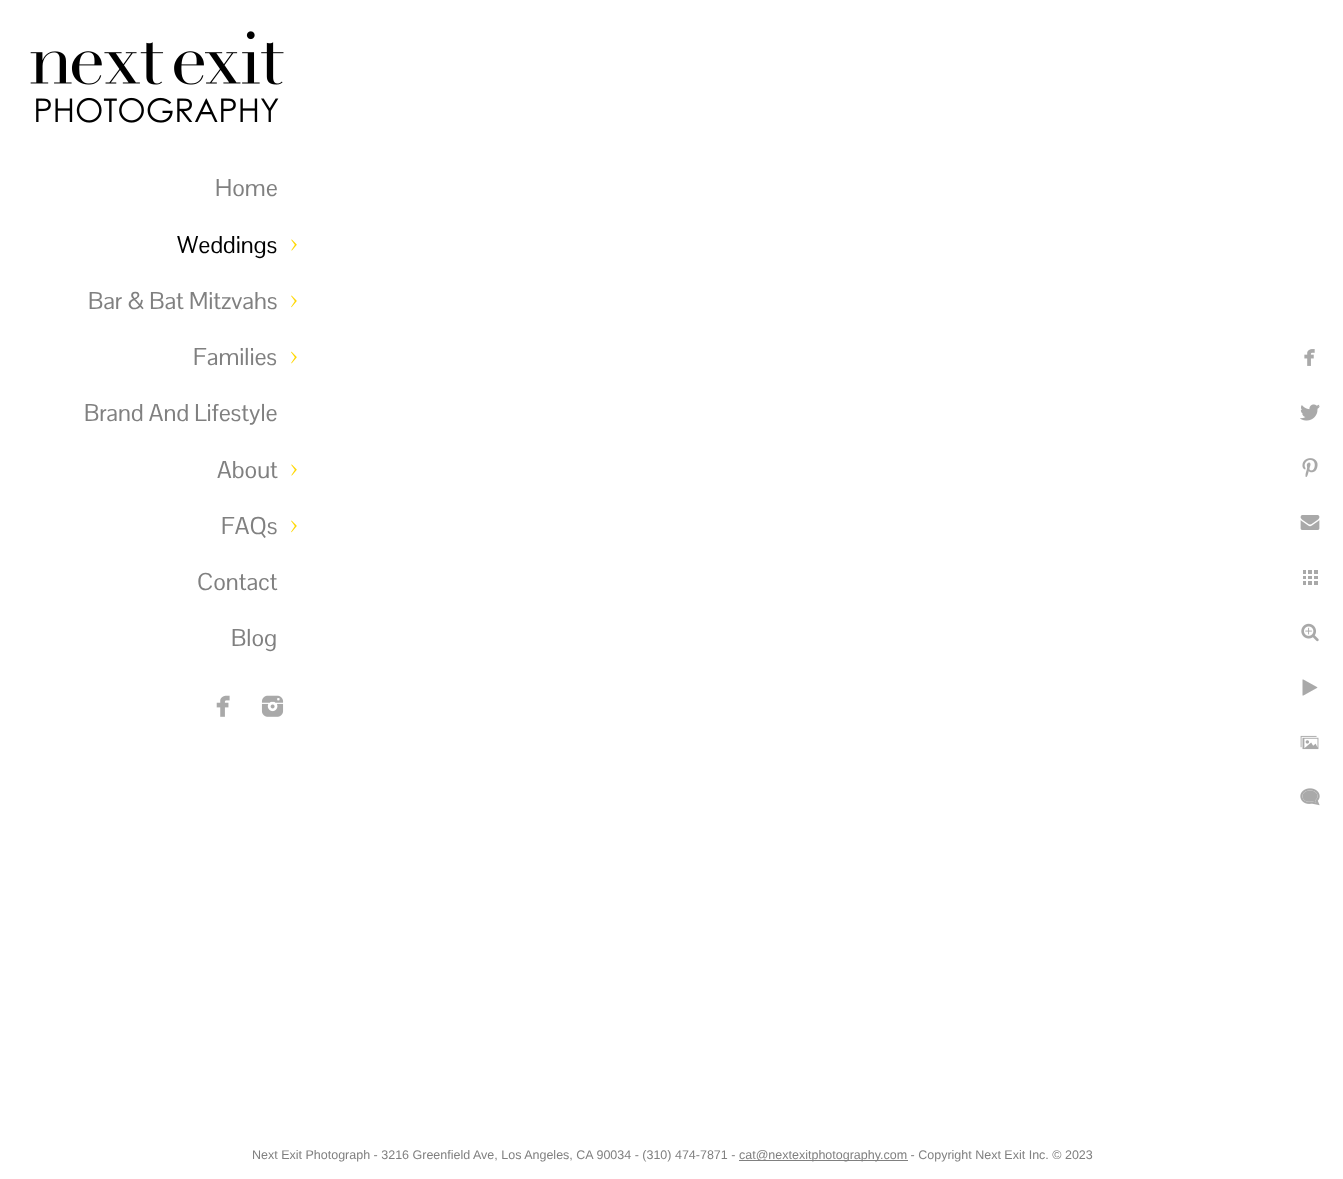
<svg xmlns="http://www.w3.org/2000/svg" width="1343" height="1179">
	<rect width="100%" height="100%" fill="#FFFFFF" />
	<image x="30" y="31" width="254" height="92" href="assets/img1.png" />
	<text x="215" y="196" font-family="Pontano Sans" font-size="23.75" fill="#808080">Home</text>
	<text x="177" y="253" font-family="Pontano Sans" font-size="23.75" fill="#000000">Weddings</text>
	<image x="291" y="239" width="6" height="12" href="assets/img2.png" />
	<text x="88" y="309" font-family="Pontano Sans" font-size="23.75" fill="#808080">Bar &amp; Bat Mitzvahs</text>
	<image x="291" y="295" width="6" height="13" href="assets/img3.png" />
	<text x="193" y="365" font-family="Pontano Sans" font-size="23.75" fill="#808080">Families</text>
	<image x="291" y="351" width="6" height="13" href="assets/img4.png" />
	<g font-family="Pontano Sans" font-size="23.75" fill="#808080">
		<text x="84" y="421">Brand And Lifestyle</text>
		<text x="217" y="478">About</text>
	</g>
	<image x="291" y="464" width="6" height="12" href="assets/img2.png" />
	<text x="221" y="534" font-family="Pontano Sans" font-size="23.75" fill="#808080">FAQs</text>
	<image x="291" y="520" width="6" height="13" href="assets/img3.png" />
	<g font-family="Pontano Sans" font-size="23.75" fill="#808080">
		<text x="197" y="590">Contact</text>
		<text x="231" y="646">Blog</text>
	</g>
	<image x="216" y="695" width="14" height="22" href="assets/img5.png" />
	<image x="261" y="695" width="23" height="22" href="assets/img6.png" />
	<image x="1304" y="349" width="11" height="17" href="assets/img7.png" />
	<image x="1300" y="404" width="20" height="17" href="assets/img8.png" />
	<image x="1302" y="458" width="16" height="19" href="assets/img9.png" />
	<image x="1300" y="515" width="20" height="15" href="assets/img10.png" />
	<image x="1303" y="570" width="15" height="15" href="assets/img11.png" />
	<image x="1301" y="623" width="18" height="19" href="assets/img12.png" />
	<image x="1302" y="679" width="16" height="17" href="assets/img13.png" />
	<image x="1300" y="735" width="19" height="15" href="assets/img14.png" />
	<image x="1300" y="788" width="20" height="18" href="assets/img15.png" />
	<text x="252" y="1159" font-family="Liberation Sans" font-size="12.5" fill="#808080">Next Exit Photograph - 3216 Greenfield Ave, Los Angeles, CA 90034 - (310) 474-7871 -</text>
	<rect x="739" y="1160" width="169" height="1" fill="#808080" />
	<text x="739" y="1159" font-family="Liberation Sans" font-size="12.5" fill="#808080">cat@nextexitphotography.com - Copyright Next Exit Inc. © 2023</text>
</svg>
